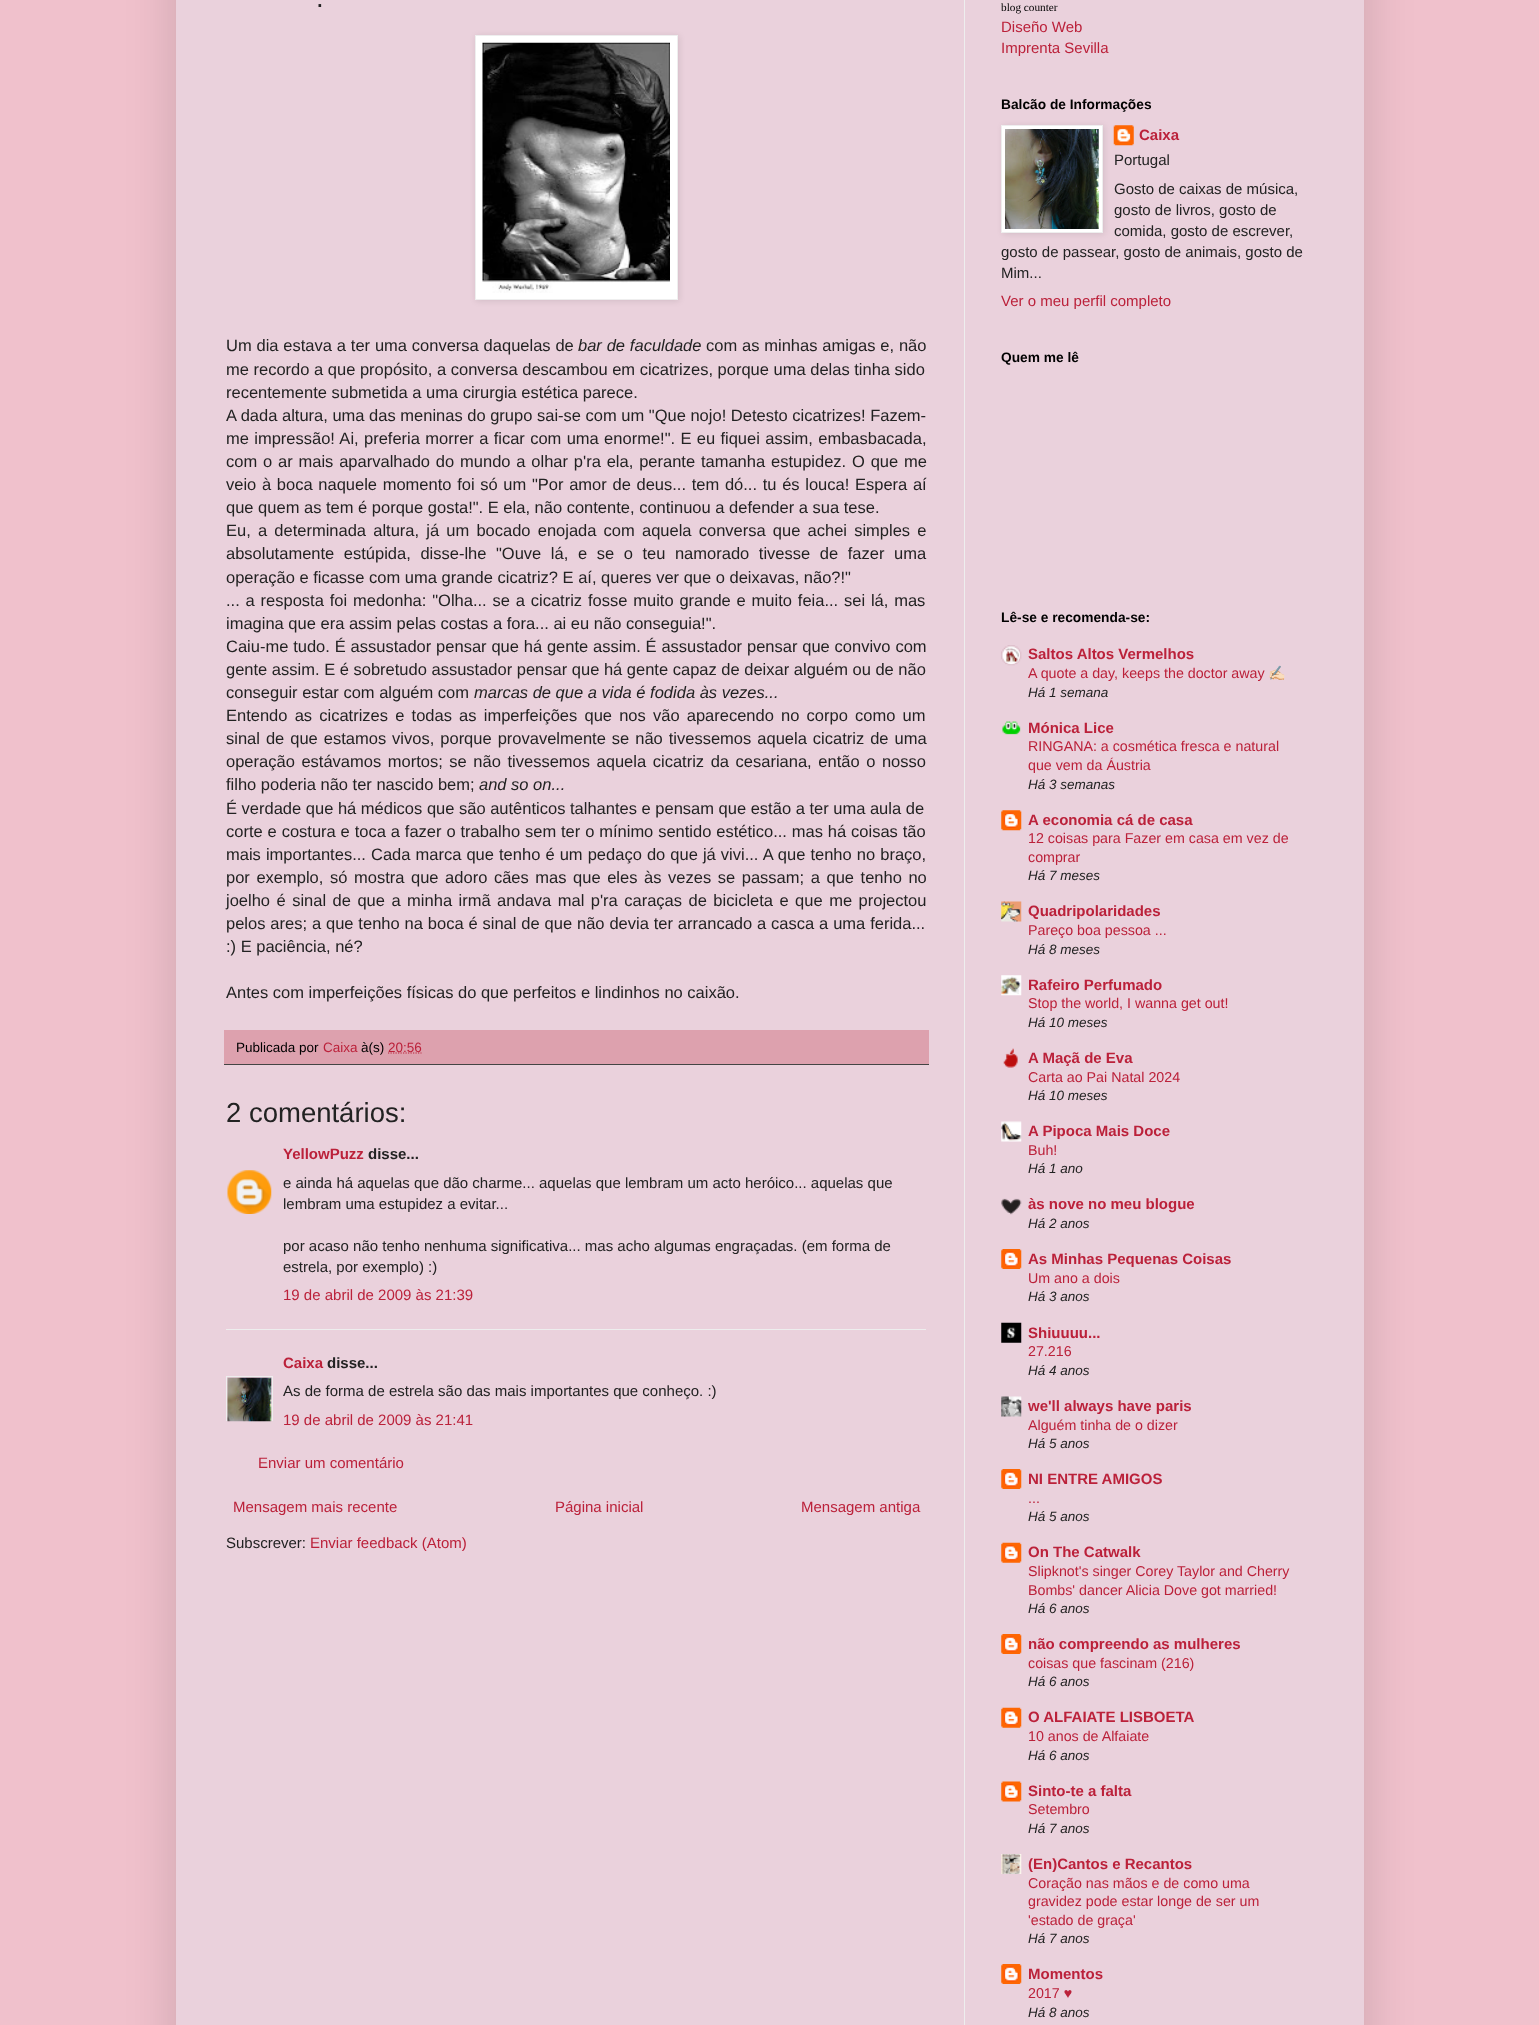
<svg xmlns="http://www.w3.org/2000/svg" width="1539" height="2025">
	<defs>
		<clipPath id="clip1"><rect x="226" y="1376" width="47" height="45" /></clipPath>
	</defs>
	<rect width="100%" height="100%" fill="#F0C1CC" />
	<rect x="176" y="-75" width="1188" height="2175" fill="#000000" fill-opacity="0.15" filter="blur(25px)" />
	<rect x="176" y="0" width="1188" height="2025" fill="#EAD1DC" />
	<rect x="964" y="0" width="1" height="2025" fill="#EEEEEE" />
	<text x="316" y="7" font-family="Liberation Sans" font-size="27.5" fill="#222222">.</text>
	<rect x="476" y="36" width="203" height="265" fill="#000000" fill-opacity="0.1" filter="blur(3px)" />
	<rect x="475.5" y="35.5" width="202" height="264" fill="#FFFFFF" stroke="#EEEEEE" />
	<image x="482" y="42" width="188" height="251" href="assets/img1.png" />
	<text x="226" y="351" word-spacing="0.25" font-family="Liberation Sans" font-size="16.5" fill="#222222">Um dia estava a ter uma conversa daquelas de</text>
	<text x="578" y="351" word-spacing="0.25" font-family="Liberation Sans" font-size="16.5" font-style="italic" fill="#222222">bar de faculdade</text>
	<g font-family="Liberation Sans" font-size="16.5" fill="#222222">
		<text x="706" y="351" word-spacing="0.25">com as minhas amigas e, não</text>
		<text x="226" y="375">me recordo a que propósito, a conversa descambou em cicatrizes, porque uma delas tinha sido</text>
		<text x="226" y="398">recentemente submetida a uma cirurgia estética parece.</text>
		<text x="226" y="421">A dada altura, uma das meninas do grupo sai-se com um "Que nojo! Detesto cicatrizes! Fazem-</text>
		<text x="226" y="444" word-spacing="0.75">me impressão! Ai, preferia morrer a ficar com uma enorme!". E eu fiquei assim, embasbacada,</text>
		<text x="226" y="467" word-spacing="1.25">com o ar mais aparvalhado do mundo a olhar p'ra ela, perante tamanha estupidez. O que me</text>
		<text x="226" y="490" word-spacing="1.1">veio à boca naquele momento foi só um "Por amor de deus... tem dó... tu és louca! Espera aí</text>
		<text x="226" y="513">que quem as tem é porque gosta!". E ela, não contente, continuou a defender a sua tese.</text>
		<text x="226" y="536" word-spacing="2.6">Eu, a determinada altura, já um bocado enojada com aquela conversa que achei simples e</text>
		<text x="226" y="559" word-spacing="5">absolutamente estúpida, disse-lhe "Ouve lá, e se o teu namorado tivesse de fazer uma</text>
		<text x="226" y="583">operação e ficasse com uma grande cicatriz? E aí, queres ver que o deixavas, não?!"</text>
		<text x="226" y="606" word-spacing="1.25">... a resposta foi medonha: "Olha... se a cicatriz fosse muito grande e muito feia... sei lá, mas</text>
		<text x="226" y="629">imagina que era assim pelas costas a fora... ai eu não conseguia!".</text>
		<text x="226" y="652" word-spacing="0.25">Caiu-me tudo. É assustador pensar que há gente assim. É assustador pensar que convivo com</text>
		<text x="226" y="675">gente assim. E é sobretudo assustador pensar que há gente capaz de deixar alguém ou de não</text>
		<text x="226" y="698">conseguir estar com alguém com</text>
	</g>
	<text x="474" y="698" font-family="Liberation Sans" font-size="16.5" font-style="italic" fill="#222222">marcas de que a vida é fodida às vezes...</text>
	<g font-family="Liberation Sans" font-size="16.5" fill="#222222">
		<text x="226" y="721" word-spacing="2.6">Entendo as cicatrizes e todas as imperfeições que nos vão aparecendo no corpo como um</text>
		<text x="226" y="744" word-spacing="1.4">sinal de que estamos vivos, porque provavelmente se não tivessemos aquela cicatriz de uma</text>
		<text x="226" y="767" word-spacing="2">operação estávamos mortos; se não tivessemos aquela cicatriz da cesariana, então o nosso</text>
		<text x="226" y="790">filho poderia não ter nascido bem;</text>
	</g>
	<text x="479" y="790" font-family="Liberation Sans" font-size="16.5" font-style="italic" fill="#222222">and so on...</text>
	<g font-family="Liberation Sans" font-size="16.5" fill="#222222">
		<text x="226" y="814">É verdade que há médicos que são autênticos talhantes e pensam que estão a ter uma aula de</text>
		<text x="226" y="837" word-spacing="0.3">corte e costura e toca a fazer o trabalho sem ter o mínimo sentido estético... mas há coisas tão</text>
		<text x="226" y="860" word-spacing="0.5">mais importantes... Cada marca que tenho é um pedaço do que já vivi... A que tenho no braço,</text>
		<text x="226" y="883" word-spacing="2">por exemplo, só mostra que adoro cães mas que eles às vezes se passam; a que tenho no</text>
		<text x="226" y="906" word-spacing="1.9">joelho é sinal de que a minha irmã andava mal p'ra caraças de bicicleta e que me projectou</text>
		<text x="226" y="929" word-spacing="0.3">pelos ares; a que tenho na boca é sinal de que não devia ter arrancado a casca a uma ferida...</text>
		<text x="226" y="952">:) E paciência, né?</text>
		<text x="226" y="998">Antes com imperfeições físicas do que perfeitos e lindinhos no caixão.</text>
	</g>
	<rect x="224" y="1030" width="705" height="34" fill="#DDA1AE" />
	<rect x="224" y="1064" width="705" height="1" fill="#444444" />
	<text x="236" y="1052" font-family="Liberation Sans" font-size="13.5" fill="#000000">Publicada por</text>
	<text x="323" y="1052" font-family="Liberation Sans" font-size="13.5" fill="#BB213A">Caixa</text>
	<text x="361" y="1052" font-family="Liberation Sans" font-size="13.5" fill="#000000">à(s)</text>
	<path d="M388 1053H421.5" fill="none" stroke="#BB213A" stroke-width="1.2" stroke-dasharray="1.25 1.25" />
	<text x="388" y="1052" font-family="Liberation Sans" font-size="13.5" fill="#BB213A">20:56</text>
	<text x="226" y="1122" font-family="Liberation Sans" font-size="27.5" fill="#222222">2 comentários:</text>
	<text x="283" y="1159" font-family="Liberation Sans" font-size="15" font-weight="700" fill="#BB213A">YellowPuzz</text>
	<text x="368" y="1159" font-family="Liberation Sans" font-size="15" font-weight="700" fill="#222222">disse...</text>
	<image x="227" y="1170" width="45" height="44" href="assets/img2.png" />
	<g font-family="Liberation Sans" font-size="15" fill="#222222">
		<text x="283" y="1188">e ainda há aquelas que dão charme... aquelas que lembram um acto heróico... aquelas que</text>
		<text x="283" y="1209">lembram uma estupidez a evitar...</text>
		<text x="283" y="1251">por acaso não tenho nenhuma significativa... mas acho algumas engraçadas. (em forma de</text>
		<text x="283" y="1272">estrela, por exemplo) :)</text>
	</g>
	<text x="283" y="1300" font-family="Liberation Sans" font-size="15" fill="#BB213A">19 de abril de 2009 às 21:39</text>
	<rect x="226" y="1329" width="700" height="1" fill="#EEEEEE" />
	<text x="283" y="1368" font-family="Liberation Sans" font-size="15" font-weight="700" fill="#BB213A">Caixa</text>
	<text x="327" y="1368" font-family="Liberation Sans" font-size="15" font-weight="700" fill="#222222">disse...</text>
	<g clip-path="url(#clip1)">
		<rect x="226.5" y="1376.5" width="46" height="46" fill="none" stroke="#EEEEEE" />
	</g>
	<image x="227" y="1377" width="45" height="45" href="assets/img3.png" />
	<text x="283" y="1396" font-family="Liberation Sans" font-size="15" fill="#222222">As de forma de estrela são das mais importantes que conheço. :)</text>
	<g font-family="Liberation Sans" font-size="15" fill="#BB213A">
		<text x="283" y="1425">19 de abril de 2009 às 21:41</text>
		<text x="258" y="1468">Enviar um comentário</text>
		<text x="233" y="1512">Mensagem mais recente</text>
		<text x="555" y="1512">Página inicial</text>
		<text x="801" y="1512">Mensagem antiga</text>
	</g>
	<text x="226" y="1548" font-family="Liberation Sans" font-size="15" fill="#222222">Subscrever:</text>
	<text x="310" y="1548" font-family="Liberation Sans" font-size="15" fill="#BB213A">Enviar feedback (Atom)</text>
	<text x="1001" y="11" font-family="Liberation Serif" font-size="11.25" fill="#000000">blog counter</text>
	<g font-family="Liberation Sans" font-size="15" fill="#BB213A">
		<text x="1001" y="32">Diseño Web</text>
		<text x="1001" y="53">Imprenta Sevilla</text>
	</g>
	<text x="1001" y="109" font-family="Liberation Sans" font-size="13.75" font-weight="700" fill="#000000">Balcão de Informações</text>
	<image x="1113" y="125" width="21" height="21" href="assets/img5.png" />
	<rect x="1003" y="126" width="101" height="108" fill="#000000" fill-opacity="0.1" filter="blur(3px)" />
	<rect x="1001.5" y="125.5" width="101" height="107" fill="#FFFFFF" stroke="#EEEEEE" />
	<image x="1005" y="129" width="94" height="100" href="assets/img4.png" />
	<text x="1139" y="140" font-family="Liberation Sans" font-size="15" font-weight="700" fill="#BB213A">Caixa</text>
	<g font-family="Liberation Sans" font-size="15" fill="#222222">
		<text x="1114" y="165">Portugal</text>
		<text x="1114" y="194">Gosto de caixas de música,</text>
		<text x="1114" y="215">gosto de livros, gosto de</text>
		<text x="1114" y="236">comida, gosto de escrever,</text>
		<text x="1001" y="257">gosto de passear, gosto de animais, gosto de</text>
		<text x="1001" y="278">Mim...</text>
	</g>
	<text x="1001" y="306" font-family="Liberation Sans" font-size="15" fill="#BB213A">Ver o meu perfil completo</text>
	<g font-family="Liberation Sans" font-size="13.75" font-weight="700" fill="#000000">
		<text x="1001" y="362">Quem me lê</text>
		<text x="1001" y="622">Lê-se e recomenda-se:</text>
	</g>
	<image x="1001" y="645" width="21" height="21" href="assets/img6.png" />
	<text x="1028" y="659" font-family="Liberation Sans" font-size="15" font-weight="700" fill="#BB213A">Saltos Altos Vermelhos</text>
	<text x="1028" y="678" font-family="Liberation Sans" font-size="14.25" fill="#BB213A">A quote a day, keeps the doctor away</text>
	<text x="1268" y="678" font-family="Noto Color Emoji" font-size="14.25" fill="#BB213A">✍🏻</text>
	<text x="1028" y="697" font-family="Liberation Sans" font-size="13.5" font-style="italic" fill="#222222">Há 1 semana</text>
	<image x="1002" y="721" width="19" height="14" href="assets/img7.png" />
	<text x="1028" y="733" font-family="Liberation Sans" font-size="15" font-weight="700" fill="#BB213A">Mónica Lice</text>
	<g font-family="Liberation Sans" font-size="14.25" fill="#BB213A">
		<text x="1028" y="751">RINGANA: a cosmética fresca e natural</text>
		<text x="1028" y="770">que vem da Áustria</text>
	</g>
	<text x="1028" y="789" font-family="Liberation Sans" font-size="13.5" font-style="italic" fill="#222222">Há 3 semanas</text>
	<image x="1001" y="810" width="21" height="21" href="assets/img8.png" />
	<text x="1028" y="825" font-family="Liberation Sans" font-size="15" font-weight="700" fill="#BB213A">A economia cá de casa</text>
	<g font-family="Liberation Sans" font-size="14.25" fill="#BB213A">
		<text x="1028" y="843">12 coisas para Fazer em casa em vez de</text>
		<text x="1028" y="862">comprar</text>
	</g>
	<text x="1028" y="880" font-family="Liberation Sans" font-size="13.5" font-style="italic" fill="#222222">Há 7 meses</text>
	<image x="1001" y="901" width="21" height="21" href="assets/img9.png" />
	<text x="1028" y="916" font-family="Liberation Sans" font-size="15" font-weight="700" fill="#BB213A">Quadripolaridades</text>
	<text x="1028" y="935" font-family="Liberation Sans" font-size="14.25" fill="#BB213A">Pareço boa pessoa ...</text>
	<text x="1028" y="954" font-family="Liberation Sans" font-size="13.5" font-style="italic" fill="#222222">Há 8 meses</text>
	<image x="1001" y="975" width="21" height="21" href="assets/img10.png" />
	<text x="1028" y="990" font-family="Liberation Sans" font-size="15" font-weight="700" fill="#BB213A">Rafeiro Perfumado</text>
	<text x="1028" y="1008" font-family="Liberation Sans" font-size="14.25" fill="#BB213A">Stop the world, I wanna get out!</text>
	<text x="1028" y="1027" font-family="Liberation Sans" font-size="13.5" font-style="italic" fill="#222222">Há 10 meses</text>
	<image x="1003" y="1048" width="15" height="20" href="assets/img11.png" />
	<text x="1028" y="1063" font-family="Liberation Sans" font-size="15" font-weight="700" fill="#BB213A">A Maçã de Eva</text>
	<text x="1028" y="1082" font-family="Liberation Sans" font-size="14.25" fill="#BB213A">Carta ao Pai Natal 2024</text>
	<text x="1028" y="1100" font-family="Liberation Sans" font-size="13.5" font-style="italic" fill="#222222">Há 10 meses</text>
	<image x="1001" y="1121" width="21" height="21" href="assets/img12.png" />
	<text x="1028" y="1136" font-family="Liberation Sans" font-size="15" font-weight="700" fill="#BB213A">A Pipoca Mais Doce</text>
	<text x="1028" y="1155" font-family="Liberation Sans" font-size="14.25" fill="#BB213A">Buh!</text>
	<text x="1028" y="1173" font-family="Liberation Sans" font-size="13.5" font-style="italic" fill="#222222">Há 1 ano</text>
	<image x="1001" y="1198" width="21" height="17" href="assets/img13.png" />
	<text x="1028" y="1209" font-family="Liberation Sans" font-size="15" font-weight="700" fill="#BB213A">às nove no meu blogue</text>
	<text x="1028" y="1228" font-family="Liberation Sans" font-size="13.5" font-style="italic" fill="#222222">Há 2 anos</text>
	<image x="1001" y="1249" width="21" height="20" href="assets/img14.png" />
	<text x="1028" y="1264" font-family="Liberation Sans" font-size="15" font-weight="700" fill="#BB213A">As Minhas Pequenas Coisas</text>
	<text x="1028" y="1283" font-family="Liberation Sans" font-size="14.25" fill="#BB213A">Um ano a dois</text>
	<text x="1028" y="1301" font-family="Liberation Sans" font-size="13.5" font-style="italic" fill="#222222">Há 3 anos</text>
	<image x="1001" y="1322" width="21" height="21" href="assets/img15.png" />
	<text x="1028" y="1338" font-family="Liberation Sans" font-size="15" font-weight="700" fill="#BB213A">Shiuuuu...</text>
	<text x="1028" y="1356" font-family="Liberation Sans" font-size="14.25" fill="#BB213A">27.216</text>
	<text x="1028" y="1375" font-family="Liberation Sans" font-size="13.5" font-style="italic" fill="#222222">Há 4 anos</text>
	<image x="1001" y="1396" width="21" height="21" href="assets/img16.png" />
	<text x="1028" y="1411" font-family="Liberation Sans" font-size="15" font-weight="700" fill="#BB213A">we'll always have paris</text>
	<text x="1028" y="1430" font-family="Liberation Sans" font-size="14.25" fill="#BB213A">Alguém tinha de o dizer</text>
	<text x="1028" y="1448" font-family="Liberation Sans" font-size="13.5" font-style="italic" fill="#222222">Há 5 anos</text>
	<image x="1001" y="1469" width="21" height="20" href="assets/img14.png" />
	<text x="1028" y="1484" font-family="Liberation Sans" font-size="15" font-weight="700" fill="#BB213A">NI ENTRE AMIGOS</text>
	<text x="1028" y="1503" font-family="Liberation Sans" font-size="14.25" fill="#BB213A">...</text>
	<text x="1028" y="1521" font-family="Liberation Sans" font-size="13.5" font-style="italic" fill="#222222">Há 5 anos</text>
	<image x="1001" y="1542" width="21" height="21" href="assets/img17.png" />
	<text x="1028" y="1557" font-family="Liberation Sans" font-size="15" font-weight="700" fill="#BB213A">On The Catwalk</text>
	<g font-family="Liberation Sans" font-size="14.25" fill="#BB213A">
		<text x="1028" y="1576">Slipknot's singer Corey Taylor and Cherry</text>
		<text x="1028" y="1595">Bombs' dancer Alicia Dove got married!</text>
	</g>
	<text x="1028" y="1613" font-family="Liberation Sans" font-size="13.5" font-style="italic" fill="#222222">Há 6 anos</text>
	<image x="1001" y="1634" width="21" height="20" href="assets/img14.png" />
	<text x="1028" y="1649" font-family="Liberation Sans" font-size="15" font-weight="700" fill="#BB213A">não compreendo as mulheres</text>
	<text x="1028" y="1668" font-family="Liberation Sans" font-size="14.25" fill="#BB213A">coisas que fascinam (216)</text>
	<text x="1028" y="1686" font-family="Liberation Sans" font-size="13.5" font-style="italic" fill="#222222">Há 6 anos</text>
	<image x="1001" y="1707" width="21" height="21" href="assets/img17.png" />
	<text x="1028" y="1722" font-family="Liberation Sans" font-size="15" font-weight="700" fill="#BB213A">O ALFAIATE LISBOETA</text>
	<text x="1028" y="1741" font-family="Liberation Sans" font-size="14.25" fill="#BB213A">10 anos de Alfaiate</text>
	<text x="1028" y="1760" font-family="Liberation Sans" font-size="13.5" font-style="italic" fill="#222222">Há 6 anos</text>
	<image x="1001" y="1781" width="21" height="21" href="assets/img18.png" />
	<text x="1028" y="1796" font-family="Liberation Sans" font-size="15" font-weight="700" fill="#BB213A">Sinto-te a falta</text>
	<text x="1028" y="1814" font-family="Liberation Sans" font-size="14.25" fill="#BB213A">Setembro</text>
	<text x="1028" y="1833" font-family="Liberation Sans" font-size="13.5" font-style="italic" fill="#222222">Há 7 anos</text>
	<image x="1001" y="1854" width="21" height="20" href="assets/img19.png" />
	<text x="1028" y="1869" font-family="Liberation Sans" font-size="15" font-weight="700" fill="#BB213A">(En)Cantos e Recantos</text>
	<g font-family="Liberation Sans" font-size="14.25" fill="#BB213A">
		<text x="1028" y="1888">Coração nas mãos e de como uma</text>
		<text x="1028" y="1906">gravidez pode estar longe de ser um</text>
		<text x="1028" y="1925">'estado de graça'</text>
	</g>
	<text x="1028" y="1943" font-family="Liberation Sans" font-size="13.5" font-style="italic" fill="#222222">Há 7 anos</text>
	<image x="1001" y="1964" width="21" height="20" href="assets/img14.png" />
	<text x="1028" y="1979" font-family="Liberation Sans" font-size="15" font-weight="700" fill="#BB213A">Momentos</text>
	<text x="1028" y="1998" font-family="Liberation Sans" font-size="14.25" fill="#BB213A">2017 ♥</text>
	<text x="1028" y="2017" font-family="Liberation Sans" font-size="13.5" font-style="italic" fill="#222222">Há 8 anos</text>
</svg>
